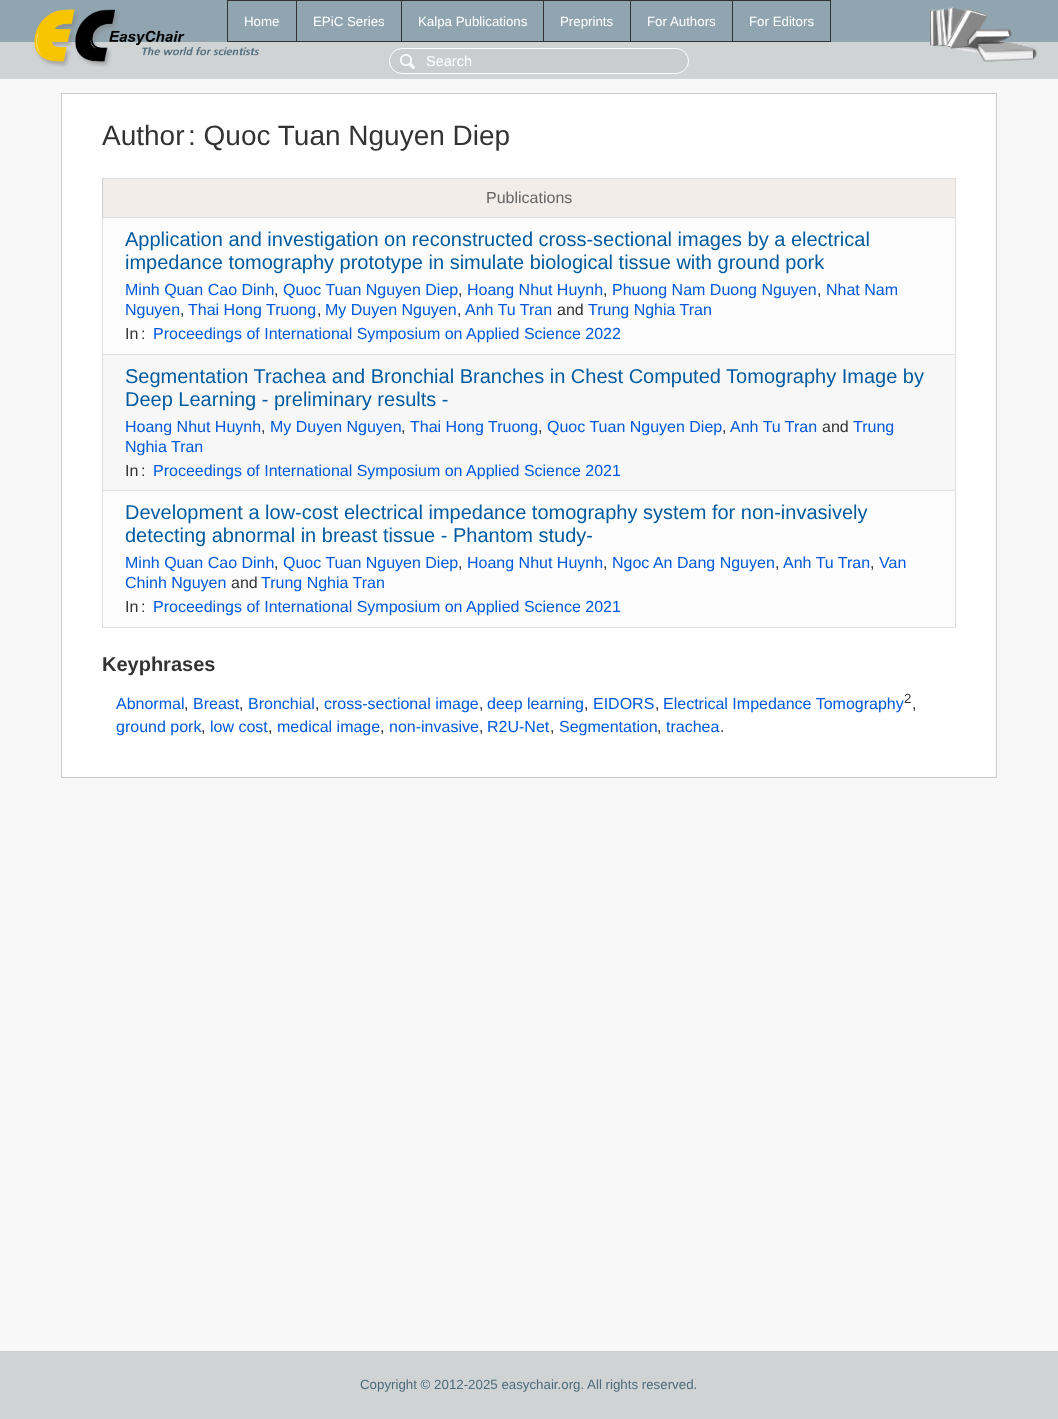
<svg xmlns="http://www.w3.org/2000/svg" width="1058" height="1419">
	<rect width="100%" height="100%" fill="#90A5B0" />
	<rect x="0" y="43" width="1057" height="35" fill="#D0D3D4" />
	<rect x="0" y="42" width="1058" height="1" fill="#D0D3D4" />
	<image x="34" y="9" width="225" height="58" href="assets/img1.png" />
	<rect x="732" y="0" width="99" height="1" fill="#333333" />
	<rect x="830" y="0" width="1" height="42" fill="#333333" />
	<rect x="732" y="41" width="99" height="1" fill="#333333" />
	<rect x="732" y="0" width="1" height="42" fill="#333333" />
	<rect x="630" y="0" width="103" height="1" fill="#333333" />
	<rect x="630" y="41" width="103" height="1" fill="#333333" />
	<rect x="630" y="0" width="1" height="42" fill="#333333" />
	<rect x="543" y="0" width="88" height="1" fill="#333333" />
	<rect x="543" y="41" width="88" height="1" fill="#333333" />
	<rect x="543" y="0" width="1" height="42" fill="#333333" />
	<rect x="401" y="0" width="143" height="1" fill="#333333" />
	<rect x="401" y="41" width="143" height="1" fill="#333333" />
	<rect x="401" y="0" width="1" height="42" fill="#333333" />
	<rect x="296" y="0" width="106" height="1" fill="#333333" />
	<rect x="296" y="41" width="106" height="1" fill="#333333" />
	<rect x="296" y="0" width="1" height="42" fill="#333333" />
	<rect x="227" y="0" width="70" height="1" fill="#333333" />
	<rect x="227" y="41" width="70" height="1" fill="#333333" />
	<rect x="227" y="0" width="1" height="42" fill="#333333" />
	<g font-family="Liberation Sans" font-size="13.3" fill="#FFFFFF">
		<text x="244" y="26">Home</text>
		<text x="313" y="26">EPiC Series</text>
		<text x="418" y="26">Kalpa Publications</text>
		<text x="560" y="26">Preprints</text>
		<text x="647" y="26">For Authors</text>
		<text x="749" y="26">For Editors</text>
	</g>
	<image x="930" y="6" width="107" height="56" href="assets/img2.png" />
	<rect x="1057" y="42" width="1" height="37" fill="#D0D3D4" />
	<rect x="0" y="78" width="1058" height="1" fill="#D0D3D4" />
	<rect x="389" y="48" width="300" height="26" rx="13" fill="#C9CDD0" />
	<image x="400" y="54" width="15" height="15" href="assets/img3.png" />
	<rect x="389.5" y="48.5" width="299" height="25" rx="12.5" fill="none" stroke="#FFFFFF" />
	<text x="426" y="66" font-family="Liberation Sans" font-size="14.5" fill="#FFFFFF">Search</text>
	<rect x="0" y="79" width="1058" height="1272" fill="#F8F8F8" />
	<rect x="61.5" y="93.5" width="935" height="684" fill="#FFFFFF" stroke="#CCCCCC" />
	<g font-family="Liberation Sans" font-size="28" fill="#333333">
		<text x="102" y="145">Author</text>
		<text x="188" y="145">: Quoc Tuan Nguyen Diep</text>
	</g>
	<rect x="102" y="178" width="854" height="1" fill="#DEDEDE" />
	<rect x="955" y="178" width="1" height="450" fill="#DEDEDE" />
	<rect x="102" y="627" width="854" height="1" fill="#DEDEDE" />
	<rect x="102" y="218" width="1" height="410" fill="#DEDEDE" />
	<rect x="103" y="179" width="852" height="38" fill="#F2EDE9" />
	<rect x="102" y="217" width="854" height="1" fill="#DEDEDE" />
	<rect x="102" y="178" width="1" height="40" fill="#CCCCCC" />
	<text x="486" y="203" font-family="Liberation Sans" font-size="16" fill="#666666">Publications</text>
	<rect x="103" y="218" width="852" height="136" fill="#FCFCFC" />
	<rect x="102" y="354" width="854" height="1" fill="#DEDEDE" />
	<g font-family="Liberation Sans" font-size="20" fill="#005A9F">
		<text x="125" y="246">Application and investigation on reconstructed cross-sectional images by a electrical</text>
		<text x="125" y="269">impedance tomography prototype in simulate biological tissue with ground pork</text>
	</g>
	<text x="125" y="295" font-family="Liberation Sans" font-size="16" fill="#0059DB">Minh Quan Cao Dinh</text>
	<text x="274" y="295" font-family="Liberation Sans" font-size="16" fill="#333333">,</text>
	<text x="283" y="295" font-family="Liberation Sans" font-size="16" fill="#0059DB">Quoc Tuan Nguyen Diep</text>
	<text x="458" y="295" font-family="Liberation Sans" font-size="16" fill="#333333">,</text>
	<text x="467" y="295" font-family="Liberation Sans" font-size="16" fill="#0059DB">Hoang Nhut Huynh</text>
	<text x="603" y="295" font-family="Liberation Sans" font-size="16" fill="#333333">,</text>
	<text x="612" y="295" font-family="Liberation Sans" font-size="16" fill="#0059DB">Phuong Nam Duong Nguyen</text>
	<text x="817" y="295" font-family="Liberation Sans" font-size="16" fill="#333333">,</text>
	<g font-family="Liberation Sans" font-size="16" fill="#0059DB">
		<text x="826" y="295">Nhat Nam</text>
		<text x="125" y="315">Nguyen</text>
	</g>
	<text x="180" y="315" font-family="Liberation Sans" font-size="16" fill="#333333">,</text>
	<text x="188" y="315" font-family="Liberation Sans" font-size="16" fill="#0059DB">Thai Hong Truong</text>
	<text x="317" y="315" font-family="Liberation Sans" font-size="16" fill="#333333">,</text>
	<text x="325" y="315" font-family="Liberation Sans" font-size="16" fill="#0059DB">My Duyen Nguyen</text>
	<text x="457" y="315" font-family="Liberation Sans" font-size="16" fill="#333333">,</text>
	<text x="465" y="315" font-family="Liberation Sans" font-size="16" fill="#0059DB">Anh Tu Tran</text>
	<text x="557" y="315" font-family="Liberation Sans" font-size="16" fill="#333333">and</text>
	<text x="588" y="315" font-family="Liberation Sans" font-size="16" fill="#0059DB">Trung Nghia Tran</text>
	<g font-family="Liberation Sans" font-size="16" fill="#333333">
		<text x="125" y="339">In</text>
		<text x="141" y="339">:</text>
	</g>
	<text x="153" y="339" font-family="Liberation Sans" font-size="16" fill="#0059DB">Proceedings of International Symposium on Applied Science 2022</text>
	<rect x="103" y="355" width="852" height="135" fill="#F7F7F7" />
	<rect x="102" y="490" width="854" height="1" fill="#DEDEDE" />
	<g font-family="Liberation Sans" font-size="20" fill="#005A9F">
		<text x="125" y="383">Segmentation Trachea and Bronchial Branches in Chest Computed Tomography Image by</text>
		<text x="125" y="406">Deep Learning - preliminary results -</text>
	</g>
	<text x="125" y="432" font-family="Liberation Sans" font-size="16" fill="#0059DB">Hoang Nhut Huynh</text>
	<text x="261" y="432" font-family="Liberation Sans" font-size="16" fill="#333333">,</text>
	<text x="270" y="432" font-family="Liberation Sans" font-size="16" fill="#0059DB">My Duyen Nguyen</text>
	<text x="401" y="432" font-family="Liberation Sans" font-size="16" fill="#333333">,</text>
	<text x="410" y="432" font-family="Liberation Sans" font-size="16" fill="#0059DB">Thai Hong Truong</text>
	<text x="538" y="432" font-family="Liberation Sans" font-size="16" fill="#333333">,</text>
	<text x="547" y="432" font-family="Liberation Sans" font-size="16" fill="#0059DB">Quoc Tuan Nguyen Diep</text>
	<text x="722" y="432" font-family="Liberation Sans" font-size="16" fill="#333333">,</text>
	<text x="730" y="432" font-family="Liberation Sans" font-size="16" fill="#0059DB">Anh Tu Tran</text>
	<text x="822" y="432" font-family="Liberation Sans" font-size="16" fill="#333333">and</text>
	<g font-family="Liberation Sans" font-size="16" fill="#0059DB">
		<text x="853" y="432">Trung</text>
		<text x="125" y="452">Nghia Tran</text>
	</g>
	<g font-family="Liberation Sans" font-size="16" fill="#333333">
		<text x="125" y="476">In</text>
		<text x="141" y="476">:</text>
	</g>
	<text x="153" y="476" font-family="Liberation Sans" font-size="16" fill="#0059DB">Proceedings of International Symposium on Applied Science 2021</text>
	<rect x="103" y="491" width="852" height="136" fill="#FCFCFC" />
	<g font-family="Liberation Sans" font-size="20" fill="#005A9F">
		<text x="125" y="519">Development a low-cost electrical impedance tomography system for non-invasively</text>
		<text x="125" y="542">detecting abnormal in breast tissue - Phantom study-</text>
	</g>
	<text x="125" y="568" font-family="Liberation Sans" font-size="16" fill="#0059DB">Minh Quan Cao Dinh</text>
	<text x="274" y="568" font-family="Liberation Sans" font-size="16" fill="#333333">,</text>
	<text x="283" y="568" font-family="Liberation Sans" font-size="16" fill="#0059DB">Quoc Tuan Nguyen Diep</text>
	<text x="458" y="568" font-family="Liberation Sans" font-size="16" fill="#333333">,</text>
	<text x="467" y="568" font-family="Liberation Sans" font-size="16" fill="#0059DB">Hoang Nhut Huynh</text>
	<text x="603" y="568" font-family="Liberation Sans" font-size="16" fill="#333333">,</text>
	<text x="612" y="568" font-family="Liberation Sans" font-size="16" fill="#0059DB">Ngoc An Dang Nguyen</text>
	<text x="775" y="568" font-family="Liberation Sans" font-size="16" fill="#333333">,</text>
	<text x="783" y="568" font-family="Liberation Sans" font-size="16" fill="#0059DB">Anh Tu Tran</text>
	<text x="870" y="568" font-family="Liberation Sans" font-size="16" fill="#333333">,</text>
	<g font-family="Liberation Sans" font-size="16" fill="#0059DB">
		<text x="879" y="568">Van</text>
		<text x="125" y="588">Chinh Nguyen</text>
	</g>
	<text x="231" y="588" font-family="Liberation Sans" font-size="16" fill="#333333">and</text>
	<text x="261" y="588" font-family="Liberation Sans" font-size="16" fill="#0059DB">Trung Nghia Tran</text>
	<g font-family="Liberation Sans" font-size="16" fill="#333333">
		<text x="125" y="612">In</text>
		<text x="141" y="612">:</text>
	</g>
	<text x="153" y="612" font-family="Liberation Sans" font-size="16" fill="#0059DB">Proceedings of International Symposium on Applied Science 2021</text>
	<text x="102" y="671" font-family="Liberation Sans" font-size="20" font-weight="700" fill="#333333">Keyphrases</text>
	<text x="116" y="709" font-family="Liberation Sans" font-size="16" fill="#0059DB">Abnormal</text>
	<text x="184" y="709" font-family="Liberation Sans" font-size="16" fill="#333333">,</text>
	<text x="193" y="709" font-family="Liberation Sans" font-size="16" fill="#0059DB">Breast</text>
	<text x="239" y="709" font-family="Liberation Sans" font-size="16" fill="#333333">,</text>
	<text x="248" y="709" font-family="Liberation Sans" font-size="16" fill="#0059DB">Bronchial</text>
	<text x="315" y="709" font-family="Liberation Sans" font-size="16" fill="#333333">,</text>
	<text x="324" y="709" font-family="Liberation Sans" font-size="16" fill="#0059DB">cross-sectional image</text>
	<text x="479" y="709" font-family="Liberation Sans" font-size="16" fill="#333333">,</text>
	<text x="487" y="709" font-family="Liberation Sans" font-size="16" fill="#0059DB">deep learning</text>
	<text x="584" y="709" font-family="Liberation Sans" font-size="16" fill="#333333">,</text>
	<text x="593" y="709" font-family="Liberation Sans" font-size="16" fill="#0059DB">EIDORS</text>
	<text x="655" y="709" font-family="Liberation Sans" font-size="16" fill="#333333">,</text>
	<text x="663" y="709" font-family="Liberation Sans" font-size="16" fill="#0059DB">Electrical Impedance Tomography</text>
	<text x="904" y="703" font-family="Liberation Sans" font-size="13.3" fill="#333333">2</text>
	<text x="912" y="709" font-family="Liberation Sans" font-size="16" fill="#333333">,</text>
	<text x="116" y="732" font-family="Liberation Sans" font-size="16" fill="#0059DB">ground pork</text>
	<text x="201" y="732" font-family="Liberation Sans" font-size="16" fill="#333333">,</text>
	<text x="210" y="732" font-family="Liberation Sans" font-size="16" fill="#0059DB">low cost</text>
	<text x="268" y="732" font-family="Liberation Sans" font-size="16" fill="#333333">,</text>
	<text x="277" y="732" font-family="Liberation Sans" font-size="16" fill="#0059DB">medical image</text>
	<text x="380" y="732" font-family="Liberation Sans" font-size="16" fill="#333333">,</text>
	<text x="389" y="732" font-family="Liberation Sans" font-size="16" fill="#0059DB">non-invasive</text>
	<text x="479" y="732" font-family="Liberation Sans" font-size="16" fill="#333333">,</text>
	<text x="487" y="732" font-family="Liberation Sans" font-size="16" fill="#0059DB">R2U-Net</text>
	<text x="550" y="732" font-family="Liberation Sans" font-size="16" fill="#333333">,</text>
	<text x="559" y="732" font-family="Liberation Sans" font-size="16" fill="#0059DB">Segmentation</text>
	<text x="657" y="732" font-family="Liberation Sans" font-size="16" fill="#333333">,</text>
	<text x="666" y="732" font-family="Liberation Sans" font-size="16" fill="#0059DB">trachea</text>
	<text x="720" y="732" font-family="Liberation Sans" font-size="16" fill="#333333">.</text>
	<rect x="0" y="1352" width="1058" height="67" fill="#D0D3D4" />
	<rect x="0" y="1351" width="1058" height="1" fill="#CCCCCC" />
	<text x="360" y="1389" font-family="Liberation Sans" font-size="13.3" fill="#4C6C7C">Copyright © 2012-2025 easychair.org. All rights reserved.</text>
</svg>
